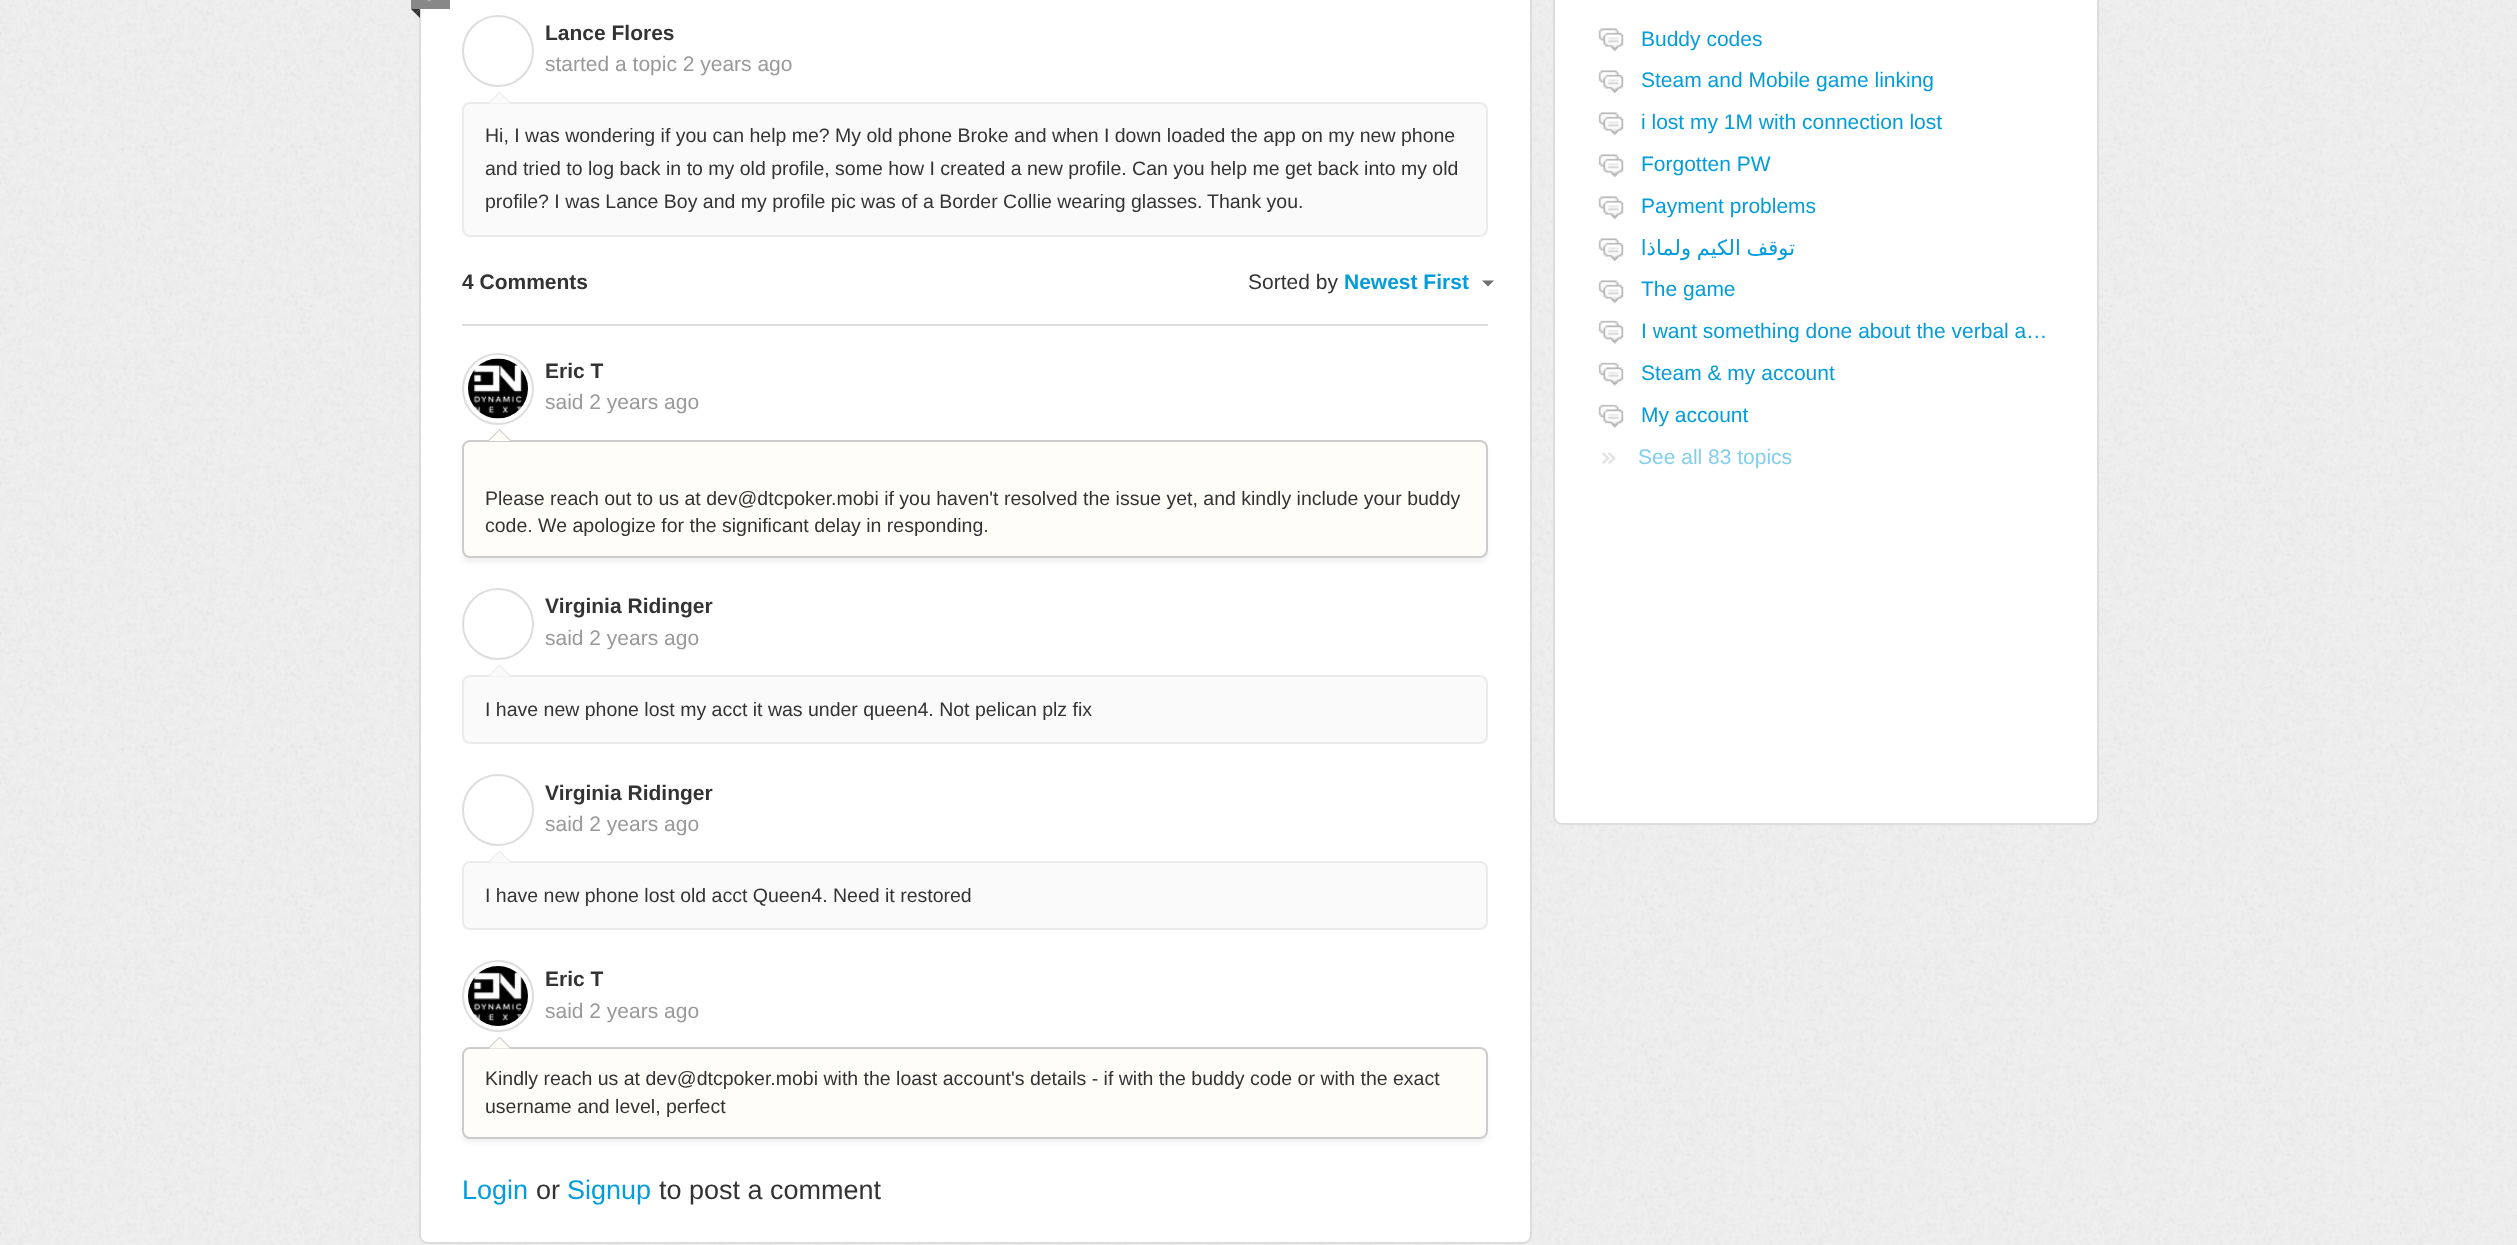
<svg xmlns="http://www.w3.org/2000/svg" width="2517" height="1245">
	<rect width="100%" height="100%" fill="#EFEFEF" />
	<image x="0" y="0" width="2517" height="1245" href="assets/img1.png" />
	<rect x="420" y="-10" width="1111" height="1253" rx="8" fill="#FFFFFF" stroke="#DCDCDC" stroke-width="2" />
	<rect x="411" y="0" width="39" height="9" fill="#888888" />
	<image x="426" y="0" width="6" height="2" href="assets/img2.png" />
	<path d="M411 9H420L415.5 13.5Z" fill="#333333" />
	<path d="M420 9V18L415.5 13.5Z" fill="#333333" />
	<circle cx="498" cy="51" r="35" fill="none" stroke="#DDDDDD" stroke-width="2" />
	<rect x="463" y="103" width="1024" height="133" rx="7" fill="#FAFAFA" stroke="#EBEBEB" stroke-width="2" />
	<path d="M511.5 103.5H487.5L499.5 91.5Z" fill="#EBEBEB" />
	<path d="M510 103.5H489L499.5 93Z" fill="#FAFAFA" />
	<text x="545" y="40" font-family="Liberation Sans" font-size="21" font-weight="700" fill="#333333">Lance Flores</text>
	<text x="545" y="71" font-family="Liberation Sans" font-size="21" fill="#999999">started a topic 2 years ago</text>
	<g font-family="Liberation Sans" font-size="19.5" fill="#333333">
		<text x="485" y="142">Hi, I was wondering if you can help me? My old phone Broke and when I down loaded the app on my new phone</text>
		<text x="485" y="175">and tried to log back in to my old profile, some how I created a new profile. Can you help me get back into my old</text>
		<text x="485" y="208">profile? I was Lance Boy and my profile pic was of a Border Collie wearing glasses.</text>
		<text x="1207" y="208">Thank you.</text>
	</g>
	<text x="462" y="289" font-family="Liberation Sans" font-size="21" font-weight="700" fill="#333333">4 Comments</text>
	<text x="1248" y="289" font-family="Liberation Sans" font-size="21" fill="#333333">Sorted by</text>
	<text x="1344" y="289" font-family="Liberation Sans" font-size="21" font-weight="700" fill="#049CDB">Newest First</text>
	<path d="M1482 280.5H1494L1488 286.5Z" fill="#6F6F6F" />
	<rect x="462" y="324" width="1026" height="2" fill="#DCDCDC" />
	<circle cx="498" cy="389" r="35" fill="none" stroke="#DDDDDD" stroke-width="2" />
	<image x="468" y="358" width="60" height="61" href="assets/img3.png" />
	<rect x="462" y="444" width="1026" height="119" rx="8" fill="#000000" fill-opacity="0.05" filter="blur(2px)" />
	<rect x="463" y="441" width="1024" height="116" rx="7" fill="#FFFDF8" stroke="#CCCCCC" stroke-width="2" />
	<path d="M511.5 441H487.5L499.5 429Z" fill="#CCCCCC" />
	<path d="M510 441H489L499.5 430.5Z" fill="#FFFDF8" />
	<text x="545" y="378" font-family="Liberation Sans" font-size="21" font-weight="700" fill="#333333">Eric T</text>
	<text x="545" y="409" font-family="Liberation Sans" font-size="21" fill="#999999">said 2 years ago</text>
	<g font-family="Liberation Sans" font-size="19.5" fill="#333333">
		<text x="485" y="505">Please reach out to us at dev@dtcpoker.mobi if you haven't resolved the issue yet, and kindly include your buddy</text>
		<text x="485" y="532">code. We apologize for the significant delay in responding.</text>
	</g>
	<circle cx="498" cy="624" r="35" fill="none" stroke="#DDDDDD" stroke-width="2" />
	<rect x="463" y="676" width="1024" height="67" rx="7" fill="#FAFAFA" stroke="#EBEBEB" stroke-width="2" />
	<path d="M511.5 676.5H487.5L499.5 664.5Z" fill="#EBEBEB" />
	<path d="M510 676.5H489L499.5 666Z" fill="#FAFAFA" />
	<text x="545" y="613" font-family="Liberation Sans" font-size="21" font-weight="700" fill="#333333">Virginia Ridinger</text>
	<text x="545" y="645" font-family="Liberation Sans" font-size="21" fill="#999999">said 2 years ago</text>
	<text x="485" y="716" font-family="Liberation Sans" font-size="19.5" fill="#333333">I have new phone lost my acct it was under queen4. Not pelican plz fix</text>
	<circle cx="498" cy="810" r="35" fill="none" stroke="#DDDDDD" stroke-width="2" />
	<rect x="463" y="862" width="1024" height="67" rx="7" fill="#FAFAFA" stroke="#EBEBEB" stroke-width="2" />
	<path d="M511.5 862.5H487.5L499.5 850.5Z" fill="#EBEBEB" />
	<path d="M510 862.5H489L499.5 852Z" fill="#FAFAFA" />
	<text x="545" y="800" font-family="Liberation Sans" font-size="21" font-weight="700" fill="#333333">Virginia Ridinger</text>
	<text x="545" y="831" font-family="Liberation Sans" font-size="21" fill="#999999">said 2 years ago</text>
	<text x="485" y="902" font-family="Liberation Sans" font-size="19.5" fill="#333333">I have new phone lost old acct Queen4. Need it restored</text>
	<circle cx="498" cy="996" r="35" fill="none" stroke="#DDDDDD" stroke-width="2" />
	<image x="468" y="966" width="60" height="60" href="assets/img4.png" />
	<rect x="462" y="1052" width="1026" height="91" rx="8" fill="#000000" fill-opacity="0.05" filter="blur(2px)" />
	<rect x="463" y="1048" width="1024" height="90" rx="7" fill="#FFFDF8" stroke="#CCCCCC" stroke-width="2" />
	<path d="M511.5 1048.5H487.5L499.5 1036.5Z" fill="#CCCCCC" />
	<path d="M510 1048.5H489L499.5 1038Z" fill="#FFFDF8" />
	<text x="545" y="986" font-family="Liberation Sans" font-size="21" font-weight="700" fill="#333333">Eric T</text>
	<text x="545" y="1018" font-family="Liberation Sans" font-size="21" fill="#999999">said 2 years ago</text>
	<g font-family="Liberation Sans" font-size="19.5" fill="#333333">
		<text x="485" y="1085">Kindly reach us at dev@dtcpoker.mobi with the loast account's details - if with the buddy code or with the exact</text>
		<text x="485" y="1113">username and level, perfect</text>
	</g>
	<text x="462" y="1199" font-family="Liberation Sans" font-size="27" fill="#049CDB">Login</text>
	<text x="536" y="1199" font-family="Liberation Sans" font-size="27" fill="#333333">or</text>
	<text x="567" y="1199" font-family="Liberation Sans" font-size="27" fill="#049CDB">Signup</text>
	<text x="659" y="1199" font-family="Liberation Sans" font-size="27" fill="#333333">to post a comment</text>
	<rect x="1554" y="-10" width="544" height="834" rx="8" fill="#FFFFFF" stroke="#DCDCDC" stroke-width="2" />
	<image x="1598" y="28" width="26" height="24" href="assets/img5.png" />
	<text x="1641" y="46" font-family="Liberation Sans" font-size="21" fill="#049CDB">Buddy codes</text>
	<image x="1598" y="70" width="26" height="24" href="assets/img5.png" />
	<text x="1641" y="87" font-family="Liberation Sans" font-size="21" fill="#049CDB">Steam and Mobile game linking</text>
	<image x="1598" y="112" width="26" height="24" href="assets/img5.png" />
	<text x="1641" y="129" font-family="Liberation Sans" font-size="21" fill="#049CDB">i lost my 1M with connection lost</text>
	<image x="1598" y="154" width="26" height="24" href="assets/img5.png" />
	<text x="1641" y="171" font-family="Liberation Sans" font-size="21" fill="#049CDB">Forgotten PW</text>
	<image x="1598" y="196" width="26" height="24" href="assets/img5.png" />
	<text x="1641" y="213" font-family="Liberation Sans" font-size="21" fill="#049CDB">Payment problems</text>
	<image x="1598" y="238" width="26" height="24" href="assets/img5.png" />
	<text x="1795" y="255" word-spacing="-1" font-family="DejaVu Sans" font-size="21" direction="rtl" fill="#049CDB">توقف الكيم ولماذا</text>
	<image x="1598" y="280" width="26" height="24" href="assets/img5.png" />
	<text x="1641" y="296" font-family="Liberation Sans" font-size="21" fill="#049CDB">The game</text>
	<image x="1598" y="320" width="26" height="24" href="assets/img6.png" />
	<text x="1641" y="338" font-family="Liberation Sans" font-size="21" fill="#049CDB">I want something done about the verbal a…</text>
	<image x="1598" y="362" width="26" height="24" href="assets/img6.png" />
	<text x="1641" y="380" font-family="Liberation Sans" font-size="21" fill="#049CDB">Steam &amp; my account</text>
	<image x="1598" y="404" width="26" height="24" href="assets/img6.png" />
	<text x="1641" y="422" font-family="Liberation Sans" font-size="21" fill="#049CDB">My account</text>
	<image x="1602" y="452" width="14" height="12" href="assets/img7.png" />
	<text x="1638" y="464" font-family="Liberation Sans" font-size="21" fill="#82CEED">See all 83 topics</text>
</svg>
